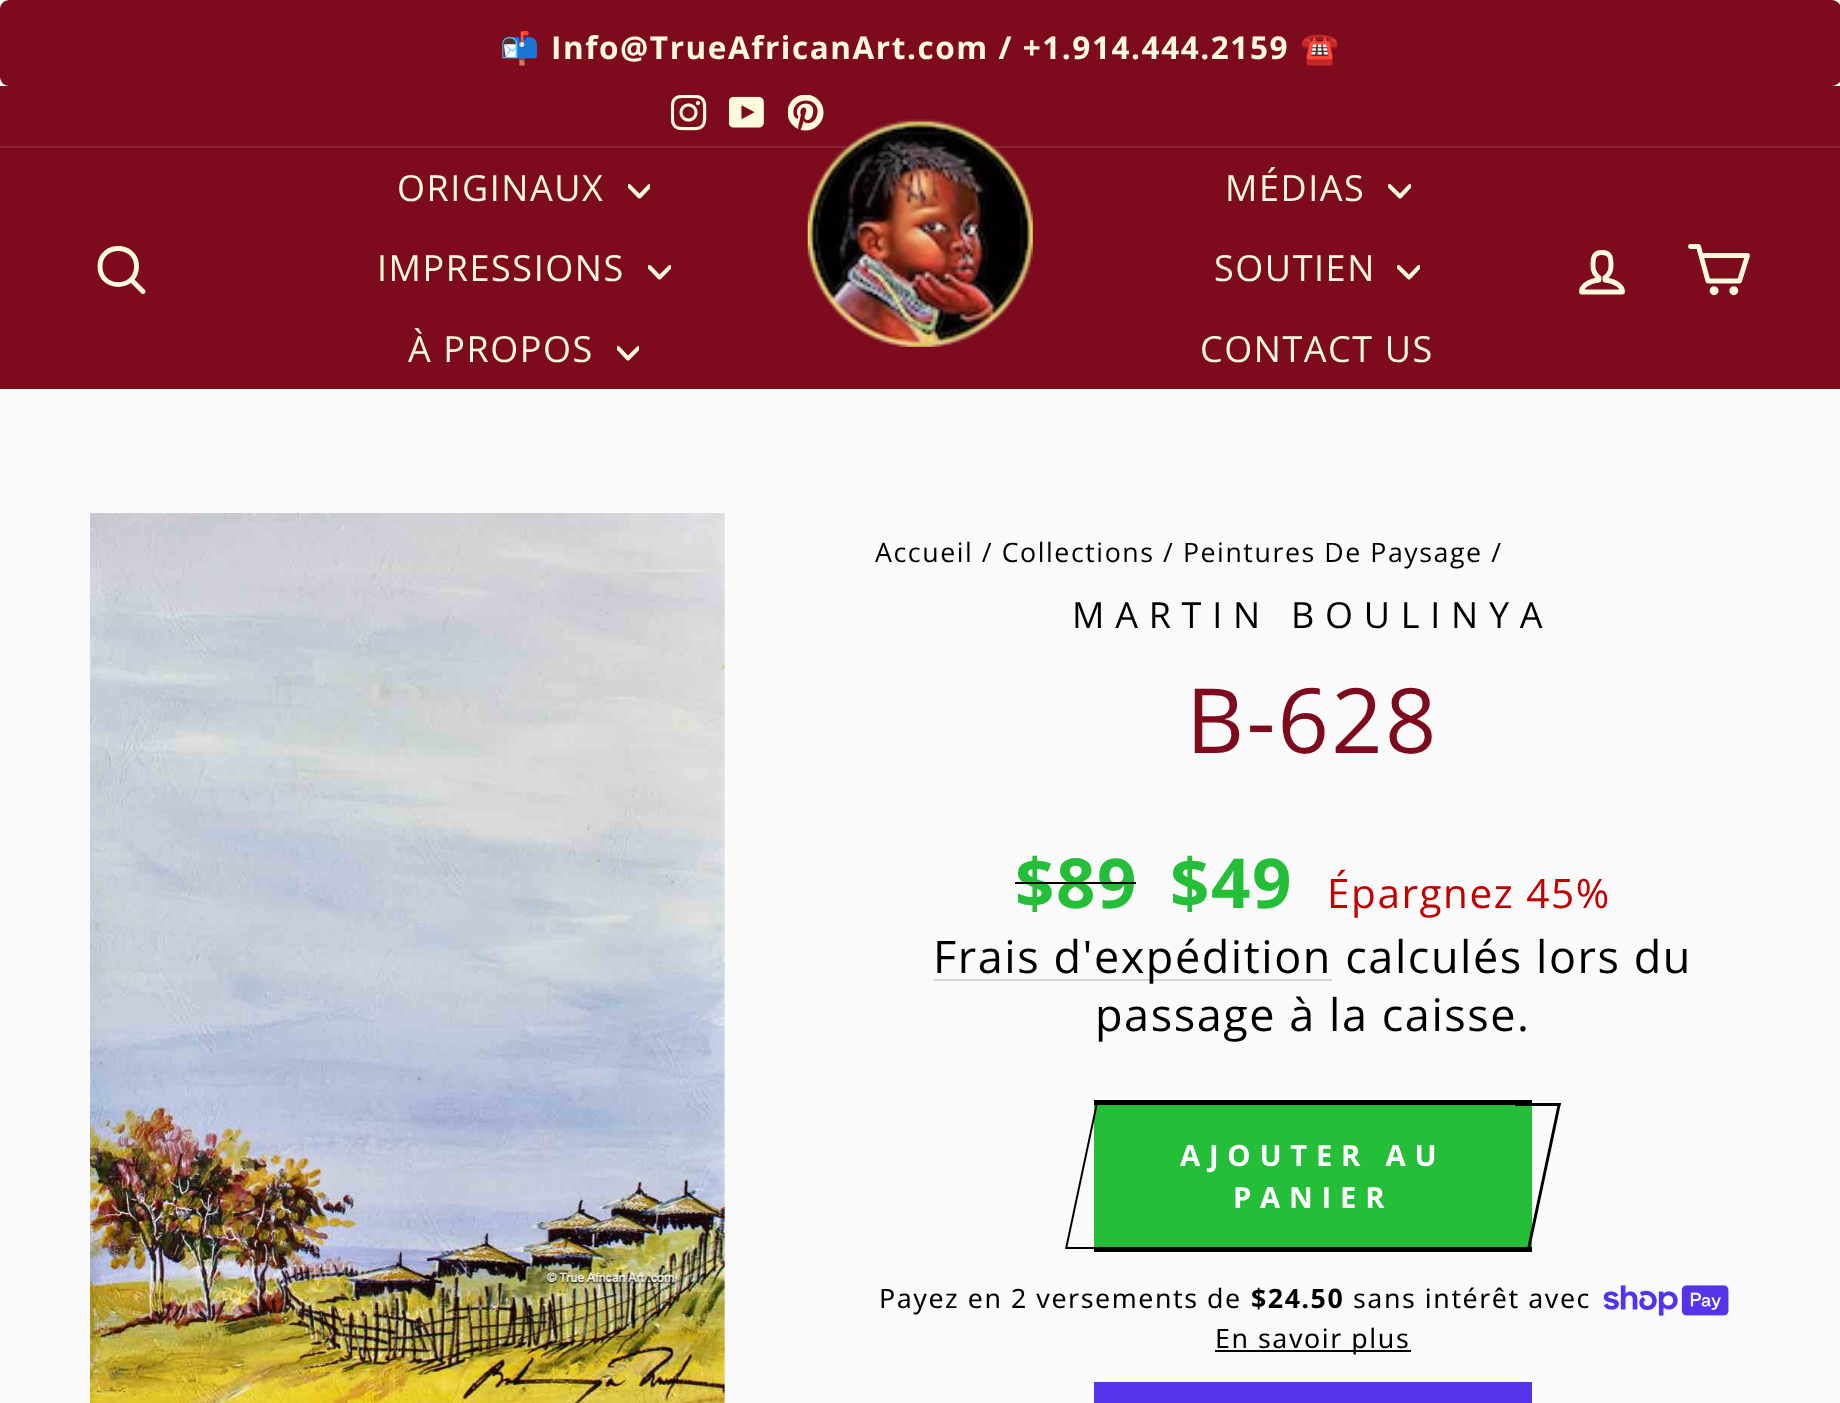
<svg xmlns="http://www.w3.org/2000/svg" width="1840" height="1403">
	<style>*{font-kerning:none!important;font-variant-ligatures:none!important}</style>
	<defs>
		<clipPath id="clip1"><rect x="628" y="180" width="22" height="23" /></clipPath>
		<clipPath id="clip2"><rect x="648" y="261" width="23" height="23" /></clipPath>
		<clipPath id="clip3"><rect x="617" y="342" width="22" height="23" /></clipPath>
		<clipPath id="clip4"><rect x="1388" y="180" width="23" height="23" /></clipPath>
		<clipPath id="clip5"><rect x="1397" y="261" width="23" height="23" /></clipPath>
	</defs>
	<rect width="100%" height="100%" fill="#FAFAFA" />
	<rect x="0" y="0" width="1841" height="86" rx="9" fill="#7D0A1D" />
	<text x="500" y="59" font-family="Noto Color Emoji" font-size="31.5" letter-spacing="1.55" fill="#FCF9DD">📬</text>
	<text x="551" y="59" font-family="Open Sans" font-size="31.5" font-weight="700" letter-spacing="1.55" fill="#FCF9DD">Info@TrueAfricanArt.com / +1.914.444.2159</text>
	<text x="1300" y="59" font-family="Noto Color Emoji" font-size="31.5" letter-spacing="1.55" fill="#FCF9DD">☎️</text>
	<rect x="0" y="86" width="1840" height="60" fill="#7D0A1D" />
	<image x="671" y="95" width="36" height="36" href="assets/img1.png" />
	<image x="729" y="96" width="35" height="32" href="assets/img2.png" />
	<image x="788" y="95" width="36" height="36" href="assets/img3.png" />
	<rect x="0" y="148" width="1840" height="241" fill="#7D0A1D" />
	<rect x="0" y="146" width="1840" height="2" fill="#8A2230" />
	<path d="M136.5 266.5C136.5 290.5 100 290.5 100 266.5C100 242.5 136.5 242.5 136.5 266.5ZM143 291.5L131.5 280" fill="none" stroke="#FCF9DD" stroke-width="4.9" stroke-linecap="round" stroke-linejoin="round" />
	<text x="397" y="201" font-family="Open Sans" font-size="36" letter-spacing="1.55" fill="#FCF9DD">ORIGINAUX</text>
	<g clip-path="url(#clip1)">
		<path d="M629 186L639.5 196.5L649.5 186" fill="none" stroke="#FCF9DD" stroke-width="4" stroke-linecap="round" stroke-linejoin="round" />
	</g>
	<text x="377" y="281" font-family="Open Sans" font-size="36" letter-spacing="1.55" fill="#FCF9DD">IMPRESSIONS</text>
	<g clip-path="url(#clip2)">
		<path d="M649.5 267L659.5 277.5L670 267" fill="none" stroke="#FCF9DD" stroke-width="4" stroke-linecap="round" stroke-linejoin="round" />
	</g>
	<text x="408" y="362" font-family="Open Sans" font-size="36" letter-spacing="1.55" fill="#FCF9DD">À PROPOS</text>
	<g clip-path="url(#clip3)">
		<path d="M618 348L628 358.5L638.5 348" fill="none" stroke="#FCF9DD" stroke-width="4" stroke-linecap="round" stroke-linejoin="round" />
	</g>
	<image x="807" y="119" width="226" height="228" href="assets/img4.png" />
	<text x="1225" y="201" font-family="Open Sans" font-size="36" letter-spacing="1.55" fill="#FCF9DD">MÉDIAS</text>
	<g clip-path="url(#clip4)">
		<path d="M1389.5 186L1400 196.5L1410 186" fill="none" stroke="#FCF9DD" stroke-width="4" stroke-linecap="round" stroke-linejoin="round" />
	</g>
	<text x="1214" y="281" font-family="Open Sans" font-size="36" letter-spacing="1.55" fill="#FCF9DD">SOUTIEN</text>
	<g clip-path="url(#clip5)">
		<path d="M1398.5 267L1409 277.5L1419 267" fill="none" stroke="#FCF9DD" stroke-width="4" stroke-linecap="round" stroke-linejoin="round" />
	</g>
	<text x="1200" y="362" font-family="Open Sans" font-size="36" letter-spacing="1.55" fill="#FCF9DD">CONTACT US</text>
	<path d="M1605 280V277.5C1608 275.5 1611 271 1611 266C1611 258.5 1611 252.5 1602 252.5C1593 252.5 1593 258.5 1593 266C1593 271 1596 275.5 1599 277.5V280C1589 281 1581.5 286 1581.5 292H1622.5C1622.5 286 1615 281 1605 280Z" fill="none" stroke="#FCF9DD" stroke-width="4.9" stroke-linecap="round" stroke-linejoin="round" />
	<path d="M1701.5 255.5H1747.5L1739.5 281H1708L1698.5 246.5H1690.5" fill="none" stroke="#FCF9DD" stroke-width="4.9" stroke-linecap="round" stroke-linejoin="round" />
	<circle cx="1714.1" cy="290.7" r="2" fill="#FCF9DD" stroke="#FCF9DD" stroke-width="4.9" />
	<circle cx="1733.8" cy="290.7" r="2" fill="#FCF9DD" stroke="#FCF9DD" stroke-width="4.9" />
	<image x="90" y="513" width="635" height="890" href="assets/img5.png" />
	<text x="875" y="562" font-family="Open Sans" font-size="26.75" letter-spacing="1.55" fill="#000000">Accueil / Collections / Peintures De Paysage /</text>
	<text x="1072" y="628" font-family="Open Sans" font-size="36" letter-spacing="10.75" fill="#000000">MARTIN BOULINYA</text>
	<text x="1186" y="753" font-family="Open Sans" font-size="90" letter-spacing="2.25" fill="#7D0A1D">B-628</text>
	<text x="1015" y="908" font-family="Open Sans" font-size="69" font-weight="700" letter-spacing="1.55" fill="#25BE38">$89</text>
	<rect x="1015" y="882" width="121" height="2" fill="#000000" />
	<text x="1170" y="908" font-family="Open Sans" font-size="69" font-weight="700" letter-spacing="1.55" fill="#25BE38">$49</text>
	<text x="1327" y="908" font-family="Open Sans" font-size="40.5" letter-spacing="1.55" fill="#C20000">Épargnez 45%</text>
	<rect x="934" y="979" width="398" height="2" fill="#D5D5D5" />
	<g font-family="Open Sans" font-size="45" letter-spacing="1.55" fill="#000000">
		<text x="933" y="973">Frais d'expédition calculés lors du</text>
		<text x="1095" y="1031">passage à la caisse.</text>
	</g>
	<rect x="1094" y="1105" width="438" height="142" fill="#25BE38" />
	<rect x="1094" y="1100" width="438" height="5" fill="#000000" />
	<rect x="1094" y="1247" width="438" height="5" fill="#000000" />
	<path d="M1066 1247H1111L1110 1249H1065Z" fill="#000000" />
	<path d="M1096 1103H1098L1067 1249H1065Z" fill="#000000" />
	<text x="1180" y="1166" font-family="Open Sans" font-size="29.25" font-weight="700" letter-spacing="8.75" fill="#FFFFFF">AJOUTER AU</text>
	<path d="M1516 1103H1561L1560 1106H1515Z" fill="#000000" />
	<path d="M1558 1103H1561L1530 1249H1527Z" fill="#000000" />
	<text x="1233" y="1208" font-family="Open Sans" font-size="29.25" font-weight="700" letter-spacing="8.75" fill="#FFFFFF">PANIER</text>
	<text x="879" y="1308" font-family="Noto Sans" font-size="26.75" letter-spacing="1.55" fill="#000000">Payez en 2 versements de</text>
	<text x="1251" y="1308" font-family="Noto Sans" font-size="26.75" font-weight="700" letter-spacing="1.55" fill="#000000">$24.50</text>
	<text x="1353" y="1308" font-family="Noto Sans" font-size="26.75" letter-spacing="1.55" fill="#000000">sans intérêt avec</text>
	<image x="1603" y="1285" width="126" height="31" href="assets/img6.png" />
	<rect x="1215" y="1350" width="196" height="2" fill="#000000" />
	<text x="1215" y="1348" font-family="Noto Sans" font-size="26.75" letter-spacing="1.55" fill="#000000">En savoir plus</text>
	<rect x="1094" y="1382" width="438" height="21" fill="#5433EB" />
</svg>
